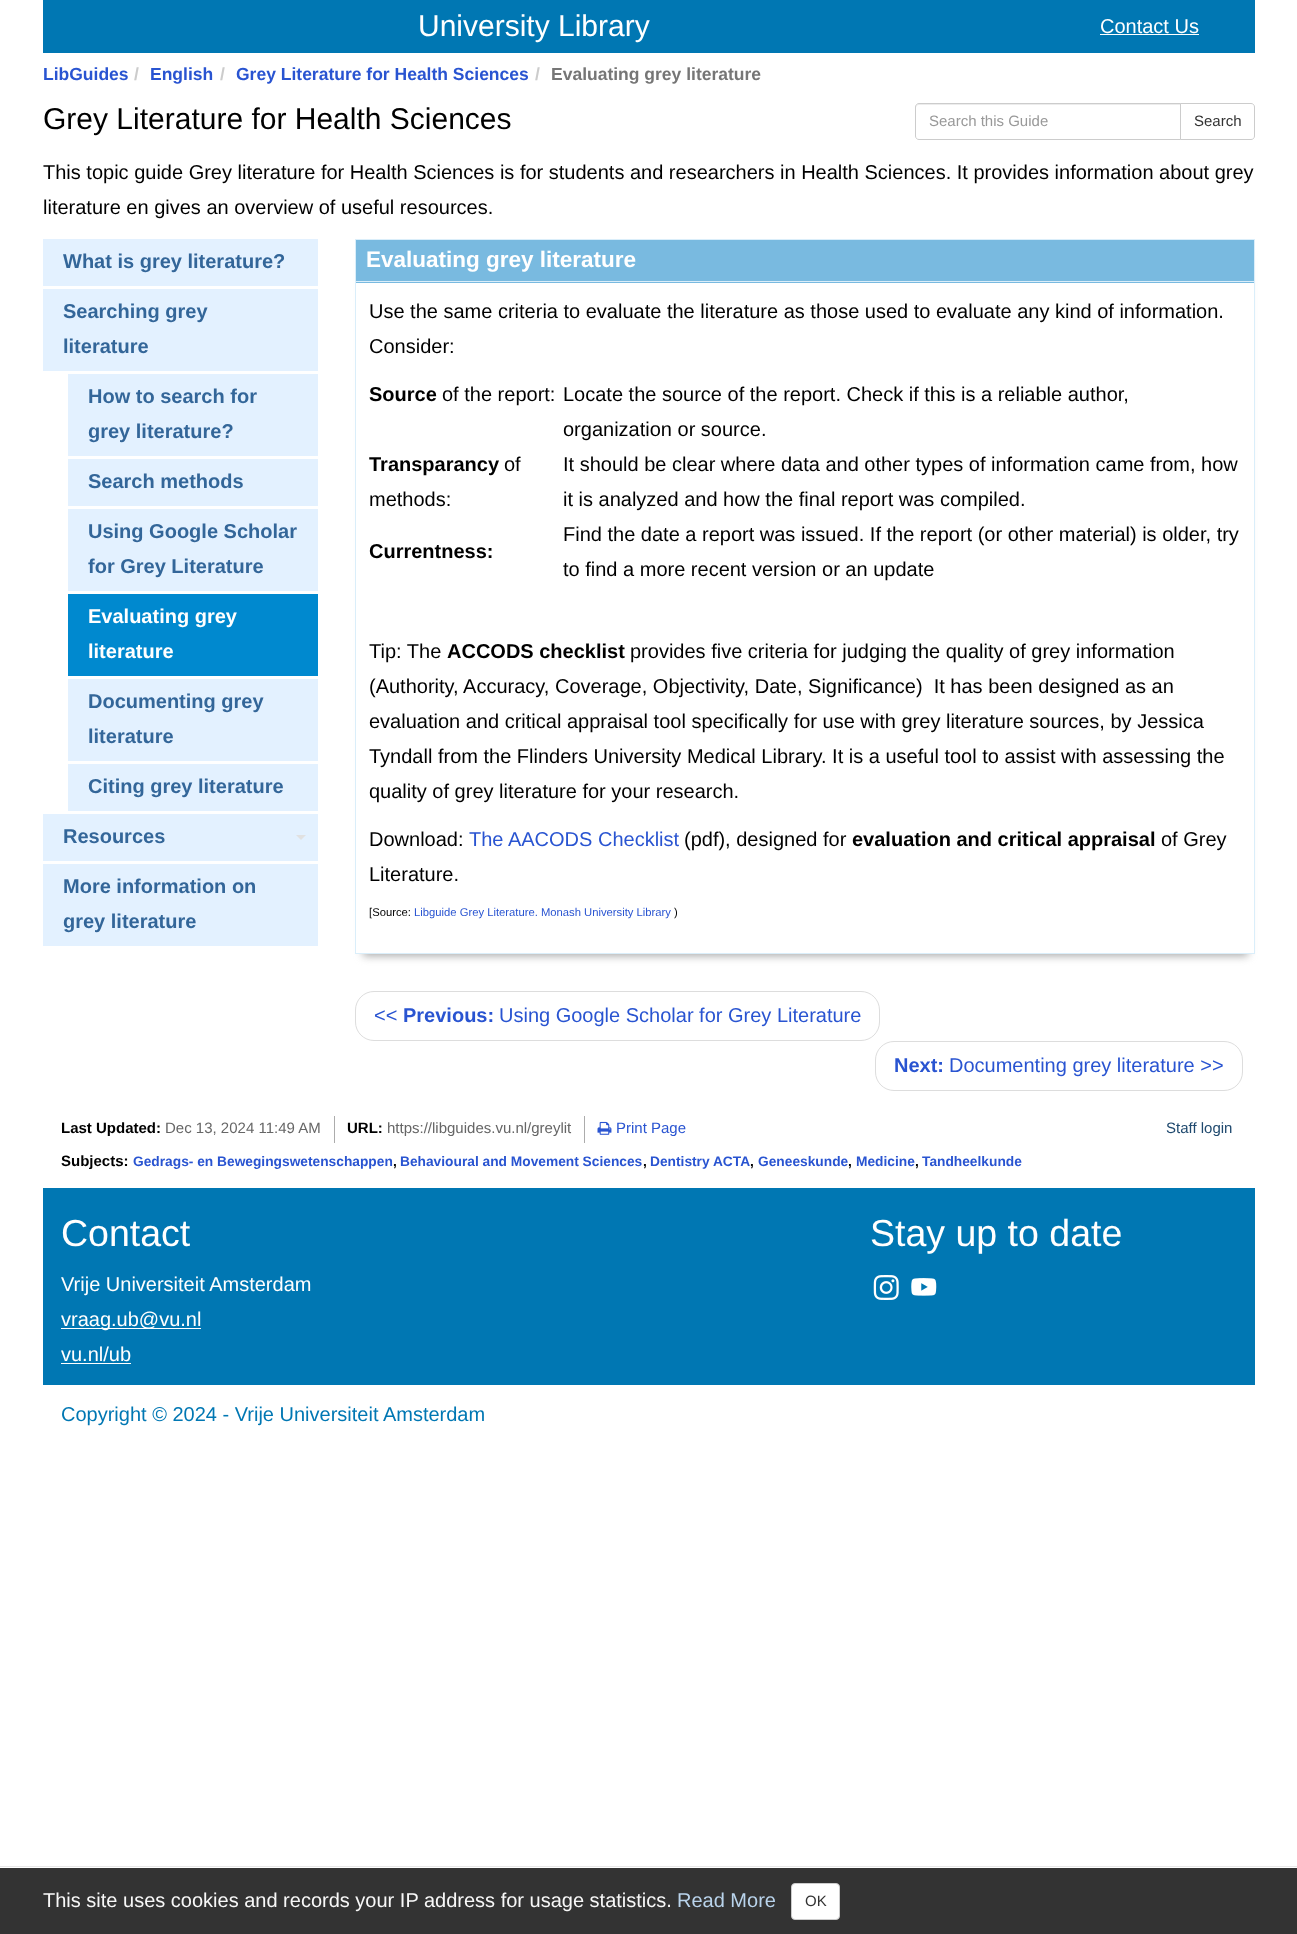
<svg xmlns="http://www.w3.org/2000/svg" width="1297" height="1934">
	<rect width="100%" height="100%" fill="#FFFFFF" />
	<rect x="43" y="0" width="1212" height="53" fill="#0077B3" />
	<text x="418" y="36" font-family="Liberation Sans" font-size="30" fill="#FFFFFF">University Library</text>
	<text x="1100" y="33" font-family="Liberation Sans" font-size="20" fill="#FFFFFF">Contact Us</text>
	<rect x="1100" y="34" width="99" height="1" fill="#FFFFFF" />
	<text x="43" y="80" font-family="Liberation Sans" font-size="17.5" font-weight="700" fill="#2954D1">LibGuides</text>
	<text x="134" y="80" font-family="Liberation Sans" font-size="17.5" font-weight="700" fill="#CCCCCC">/</text>
	<text x="150" y="80" font-family="Liberation Sans" font-size="17.5" font-weight="700" fill="#2954D1">English</text>
	<text x="220" y="80" font-family="Liberation Sans" font-size="17.5" font-weight="700" fill="#CCCCCC">/</text>
	<text x="236" y="80" font-family="Liberation Sans" font-size="17.5" font-weight="700" fill="#2954D1">Grey Literature for Health Sciences</text>
	<text x="535" y="80" font-family="Liberation Sans" font-size="17.5" font-weight="700" fill="#CCCCCC">/</text>
	<text x="551" y="80" font-family="Liberation Sans" font-size="17.5" font-weight="700" fill="#767676">Evaluating grey literature</text>
	<text x="43" y="129" font-family="Liberation Sans" font-size="30" fill="#000000">Grey Literature for Health Sciences</text>
	<g font-family="Liberation Sans" font-size="20" fill="#000000">
		<text x="43" y="179">This topic guide Grey literature for Health Sciences is for students and researchers in Health Sciences. It provides information about grey</text>
		<text x="43" y="214">literature en gives an overview of useful resources.</text>
	</g>
	<path d="M919 105H1180V104H918C917 104 916 105 916 106V108C916 106 917 105 919 105Z" fill="#ECECEC" />
	<path d="M919 103.5H1180.5V139.5H919C917 139.5 915.5 138 915.5 136V107C915.5 105 917 103.5 919 103.5Z" fill="none" stroke="#CCCCCC" />
	<text x="929" y="126" font-family="Liberation Sans" font-size="15" fill="#999999">Search this Guide</text>
	<path d="M1180.5 103.5H1251C1253 103.5 1254.5 105 1254.5 107V136C1254.5 138 1253 139.5 1251 139.5H1180.5Z" fill="#FFFFFF" stroke="#CCCCCC" />
	<text x="1194" y="126" font-family="Liberation Sans" font-size="15" fill="#333333">Search</text>
	<rect x="43" y="239" width="275" height="47" fill="#E3F1FF" />
	<text x="63" y="268" font-family="Liberation Sans" font-size="20" font-weight="700" fill="#336699">What is grey literature?</text>
	<rect x="43" y="289" width="275" height="82" fill="#E3F1FF" />
	<g font-family="Liberation Sans" font-size="20" font-weight="700" fill="#336699">
		<text x="63" y="318">Searching grey</text>
		<text x="63" y="353">literature</text>
	</g>
	<rect x="68" y="374" width="250" height="82" fill="#E3F1FF" />
	<g font-family="Liberation Sans" font-size="20" font-weight="700" fill="#336699">
		<text x="88" y="403">How to search for</text>
		<text x="88" y="438">grey literature?</text>
	</g>
	<rect x="68" y="459" width="250" height="47" fill="#E3F1FF" />
	<text x="88" y="488" font-family="Liberation Sans" font-size="20" font-weight="700" fill="#336699">Search methods</text>
	<rect x="68" y="509" width="250" height="82" fill="#E3F1FF" />
	<g font-family="Liberation Sans" font-size="20" font-weight="700" fill="#336699">
		<text x="88" y="538">Using Google Scholar</text>
		<text x="88" y="573">for Grey Literature</text>
	</g>
	<rect x="68" y="594" width="250" height="82" fill="#0089CF" />
	<g font-family="Liberation Sans" font-size="20" font-weight="700" fill="#FFFFFF">
		<text x="88" y="623">Evaluating grey</text>
		<text x="88" y="658">literature</text>
	</g>
	<rect x="68" y="679" width="250" height="82" fill="#E3F1FF" />
	<g font-family="Liberation Sans" font-size="20" font-weight="700" fill="#336699">
		<text x="88" y="708">Documenting grey</text>
		<text x="88" y="743">literature</text>
	</g>
	<rect x="68" y="764" width="250" height="47" fill="#E3F1FF" />
	<text x="88" y="793" font-family="Liberation Sans" font-size="20" font-weight="700" fill="#336699">Citing grey literature</text>
	<rect x="43" y="814" width="275" height="47" fill="#E3F1FF" />
	<text x="63" y="843" font-family="Liberation Sans" font-size="20" font-weight="700" fill="#336699">Resources</text>
	<path d="M296 835H306L301 840Z" fill="#E1E1E1" />
	<rect x="43" y="864" width="275" height="82" fill="#E3F1FF" />
	<g font-family="Liberation Sans" font-size="20" font-weight="700" fill="#336699">
		<text x="63" y="893">More information on</text>
		<text x="63" y="928">grey literature</text>
	</g>
	<rect x="363" y="256" width="885" height="700" fill="#AAAAAA" filter="blur(4px)" />
	<rect x="356" y="283" width="898" height="670" fill="#FFFFFF" />
	<rect x="355.5" y="239.5" width="899" height="714" fill="none" stroke="#DAEEFA" />
	<rect x="356" y="240" width="898" height="43" fill="#79BAE0" />
	<rect x="356" y="281" width="898" height="1" fill="#DAEEFA" />
	<text x="366" y="267" font-family="Liberation Sans" font-size="22.5" font-weight="700" fill="#FFFFFF">Evaluating grey literature</text>
	<g font-family="Liberation Sans" font-size="20" fill="#000000">
		<text x="369" y="318">Use the same criteria to evaluate the literature as those used to evaluate any kind of information.</text>
		<text x="369" y="353">Consider:</text>
	</g>
	<text x="369" y="401" font-family="Liberation Sans" font-size="20" font-weight="700" fill="#000000">Source</text>
	<g font-family="Liberation Sans" font-size="20" fill="#000000">
		<text x="442" y="401">of the report:</text>
		<text x="563" y="401">Locate the source of the report. Check if this is a reliable author,</text>
		<text x="563" y="436">organization or source.</text>
	</g>
	<text x="369" y="471" font-family="Liberation Sans" font-size="20" font-weight="700" fill="#000000">Transparancy</text>
	<g font-family="Liberation Sans" font-size="20" fill="#000000">
		<text x="504" y="471">of</text>
		<text x="369" y="506">methods:</text>
		<text x="563" y="471">It should be clear where data and other types of information came from, how</text>
		<text x="563" y="506">it is analyzed and how the final report was compiled.</text>
	</g>
	<text x="369" y="558" font-family="Liberation Sans" font-size="20" font-weight="700" fill="#000000">Currentness:</text>
	<g font-family="Liberation Sans" font-size="20" fill="#000000">
		<text x="563" y="541">Find the date a report was issued. If the report (or other material) is older, try</text>
		<text x="563" y="576">to find a more recent version or an update</text>
		<text x="369" y="658">Tip: The</text>
	</g>
	<text x="447" y="658" font-family="Liberation Sans" font-size="20" font-weight="700" fill="#000000">ACCODS checklist</text>
	<g font-family="Liberation Sans" font-size="20" fill="#000000">
		<text x="630" y="658">provides five criteria for judging the quality of grey information</text>
		<text x="369" y="693" xml:space="preserve">(Authority, Accuracy, Coverage, Objectivity, Date, Significance)  It has been designed as an</text>
		<text x="369" y="728">evaluation and critical appraisal tool specifically for use with grey literature sources, by Jessica</text>
		<text x="369" y="763">Tyndall from the Flinders University Medical Library. It is a useful tool to assist with assessing the</text>
		<text x="369" y="798">quality of grey literature for your research.</text>
		<text x="369" y="846">Download:</text>
	</g>
	<text x="469" y="846" font-family="Liberation Sans" font-size="20" fill="#2954D1">The AACODS Checklist</text>
	<text x="684" y="846" font-family="Liberation Sans" font-size="20" fill="#000000">(pdf), designed for</text>
	<text x="852" y="846" font-family="Liberation Sans" font-size="20" font-weight="700" fill="#000000">evaluation and critical appraisal</text>
	<g font-family="Liberation Sans" font-size="20" fill="#000000">
		<text x="1161" y="846">of Grey</text>
		<text x="369" y="881">Literature.</text>
	</g>
	<text x="369" y="916" font-family="Liberation Sans" font-size="11.25" fill="#000000">[Source:</text>
	<text x="414" y="916" font-family="Liberation Sans" font-size="11.25" fill="#2954D1">Libguide Grey Literature. Monash University Library</text>
	<text x="674" y="916" font-family="Liberation Sans" font-size="11.25" fill="#000000">)</text>
	<rect x="355.5" y="991.5" width="524" height="49" rx="18.5" fill="none" stroke="#DDDDDD" />
	<text x="374" y="1022" font-family="Liberation Sans" font-size="20" fill="#2954D1">&lt;&lt;</text>
	<text x="403" y="1022" font-family="Liberation Sans" font-size="20" font-weight="700" fill="#2954D1">Previous:</text>
	<text x="499" y="1022" font-family="Liberation Sans" font-size="20" fill="#2954D1">Using Google Scholar for Grey Literature</text>
	<rect x="875.5" y="1041.5" width="367" height="49" rx="18.5" fill="none" stroke="#DDDDDD" />
	<text x="894" y="1072" font-family="Liberation Sans" font-size="20" font-weight="700" fill="#2954D1">Next:</text>
	<text x="949" y="1072" font-family="Liberation Sans" font-size="20" fill="#2954D1">Documenting grey literature &gt;&gt;</text>
	<rect x="334" y="1116" width="1" height="27" fill="#ACACAC" />
	<text x="61" y="1133" font-family="Liberation Sans" font-size="15" font-weight="700" fill="#000000">Last Updated:</text>
	<text x="165" y="1133" font-family="Liberation Sans" font-size="15" fill="#666666">Dec 13, 2024 11:49 AM</text>
	<rect x="584" y="1116" width="1" height="27" fill="#ACACAC" />
	<text x="347" y="1133" font-family="Liberation Sans" font-size="15" font-weight="700" fill="#000000">URL:</text>
	<text x="387" y="1133" font-family="Liberation Sans" font-size="15" fill="#666666">https://libguides.vu.nl/greylit</text>
	<image x="597" y="1121" width="15" height="14" href="assets/img1.png" />
	<text x="616" y="1133" font-family="Liberation Sans" font-size="15" fill="#2954D1">Print Page</text>
	<text x="1166" y="1133" font-family="Liberation Sans" font-size="15" fill="#1F496E">Staff login</text>
	<text x="61" y="1166" font-family="Liberation Sans" font-size="15" font-weight="700" fill="#000000">Subjects:</text>
	<text x="133" y="1166" font-family="Liberation Sans" font-size="13.75" font-weight="700" fill="#2954D1">Gedrags- en Bewegingswetenschappen</text>
	<text x="393" y="1166" font-family="Liberation Sans" font-size="13.75" font-weight="700" fill="#000000">,</text>
	<text x="400" y="1166" font-family="Liberation Sans" font-size="13.75" font-weight="700" fill="#2954D1">Behavioural and Movement Sciences</text>
	<text x="643" y="1166" font-family="Liberation Sans" font-size="13.75" font-weight="700" fill="#000000">,</text>
	<text x="650" y="1166" font-family="Liberation Sans" font-size="13.75" font-weight="700" fill="#2954D1">Dentistry ACTA</text>
	<text x="750" y="1166" font-family="Liberation Sans" font-size="13.75" font-weight="700" fill="#000000">,</text>
	<text x="758" y="1166" font-family="Liberation Sans" font-size="13.75" font-weight="700" fill="#2954D1">Geneeskunde</text>
	<text x="848" y="1166" font-family="Liberation Sans" font-size="13.75" font-weight="700" fill="#000000">,</text>
	<text x="856" y="1166" font-family="Liberation Sans" font-size="13.75" font-weight="700" fill="#2954D1">Medicine</text>
	<text x="915" y="1166" font-family="Liberation Sans" font-size="13.75" font-weight="700" fill="#000000">,</text>
	<text x="922" y="1166" font-family="Liberation Sans" font-size="13.75" font-weight="700" fill="#2954D1">Tandheelkunde</text>
	<rect x="43" y="1188" width="1212" height="197" fill="#0077B3" />
	<text x="61" y="1246" font-family="Liberation Sans" font-size="37.5" fill="#FFFFFF">Contact</text>
	<text x="61" y="1291" font-family="Liberation Sans" font-size="20" fill="#FFFFFF">Vrije Universiteit Amsterdam</text>
	<rect x="61" y="1328" width="140" height="1" fill="#FFFFFF" />
	<g font-family="Liberation Sans" font-size="20" fill="#FFFFFF">
		<text x="61" y="1326">vraag.ub@vu.nl</text>
		<text x="61" y="1361">vu.nl/ub</text>
	</g>
	<rect x="61" y="1363" width="70" height="1" fill="#FFFFFF" />
	<text x="870" y="1246" font-family="Liberation Sans" font-size="37.5" fill="#FFFFFF">Stay up to date</text>
	<image x="873" y="1275" width="26" height="25" href="assets/img2.png" />
	<image x="911" y="1278" width="26" height="18" href="assets/img3.png" />
	<text x="61" y="1421" font-family="Liberation Sans" font-size="20" fill="#0077B3">Copyright © 2024 - Vrije Universiteit Amsterdam</text>
	<rect x="0" y="1868" width="1297" height="66" fill="#333333" />
	<rect x="0" y="1866" width="1297" height="1" fill="#E7E7E7" />
	<text x="43" y="1907" font-family="Liberation Sans" font-size="20" fill="#F8F8F8">This site uses cookies and records your IP address for usage statistics.</text>
	<text x="677" y="1907" font-family="Liberation Sans" font-size="20" fill="#B9D3EB">Read More</text>
	<rect x="791.5" y="1883.5" width="48" height="36" rx="3.5" fill="#FFFFFF" stroke="#CCCCCC" />
	<text x="805" y="1906" font-family="Liberation Sans" font-size="15" fill="#333333">OK</text>
</svg>
